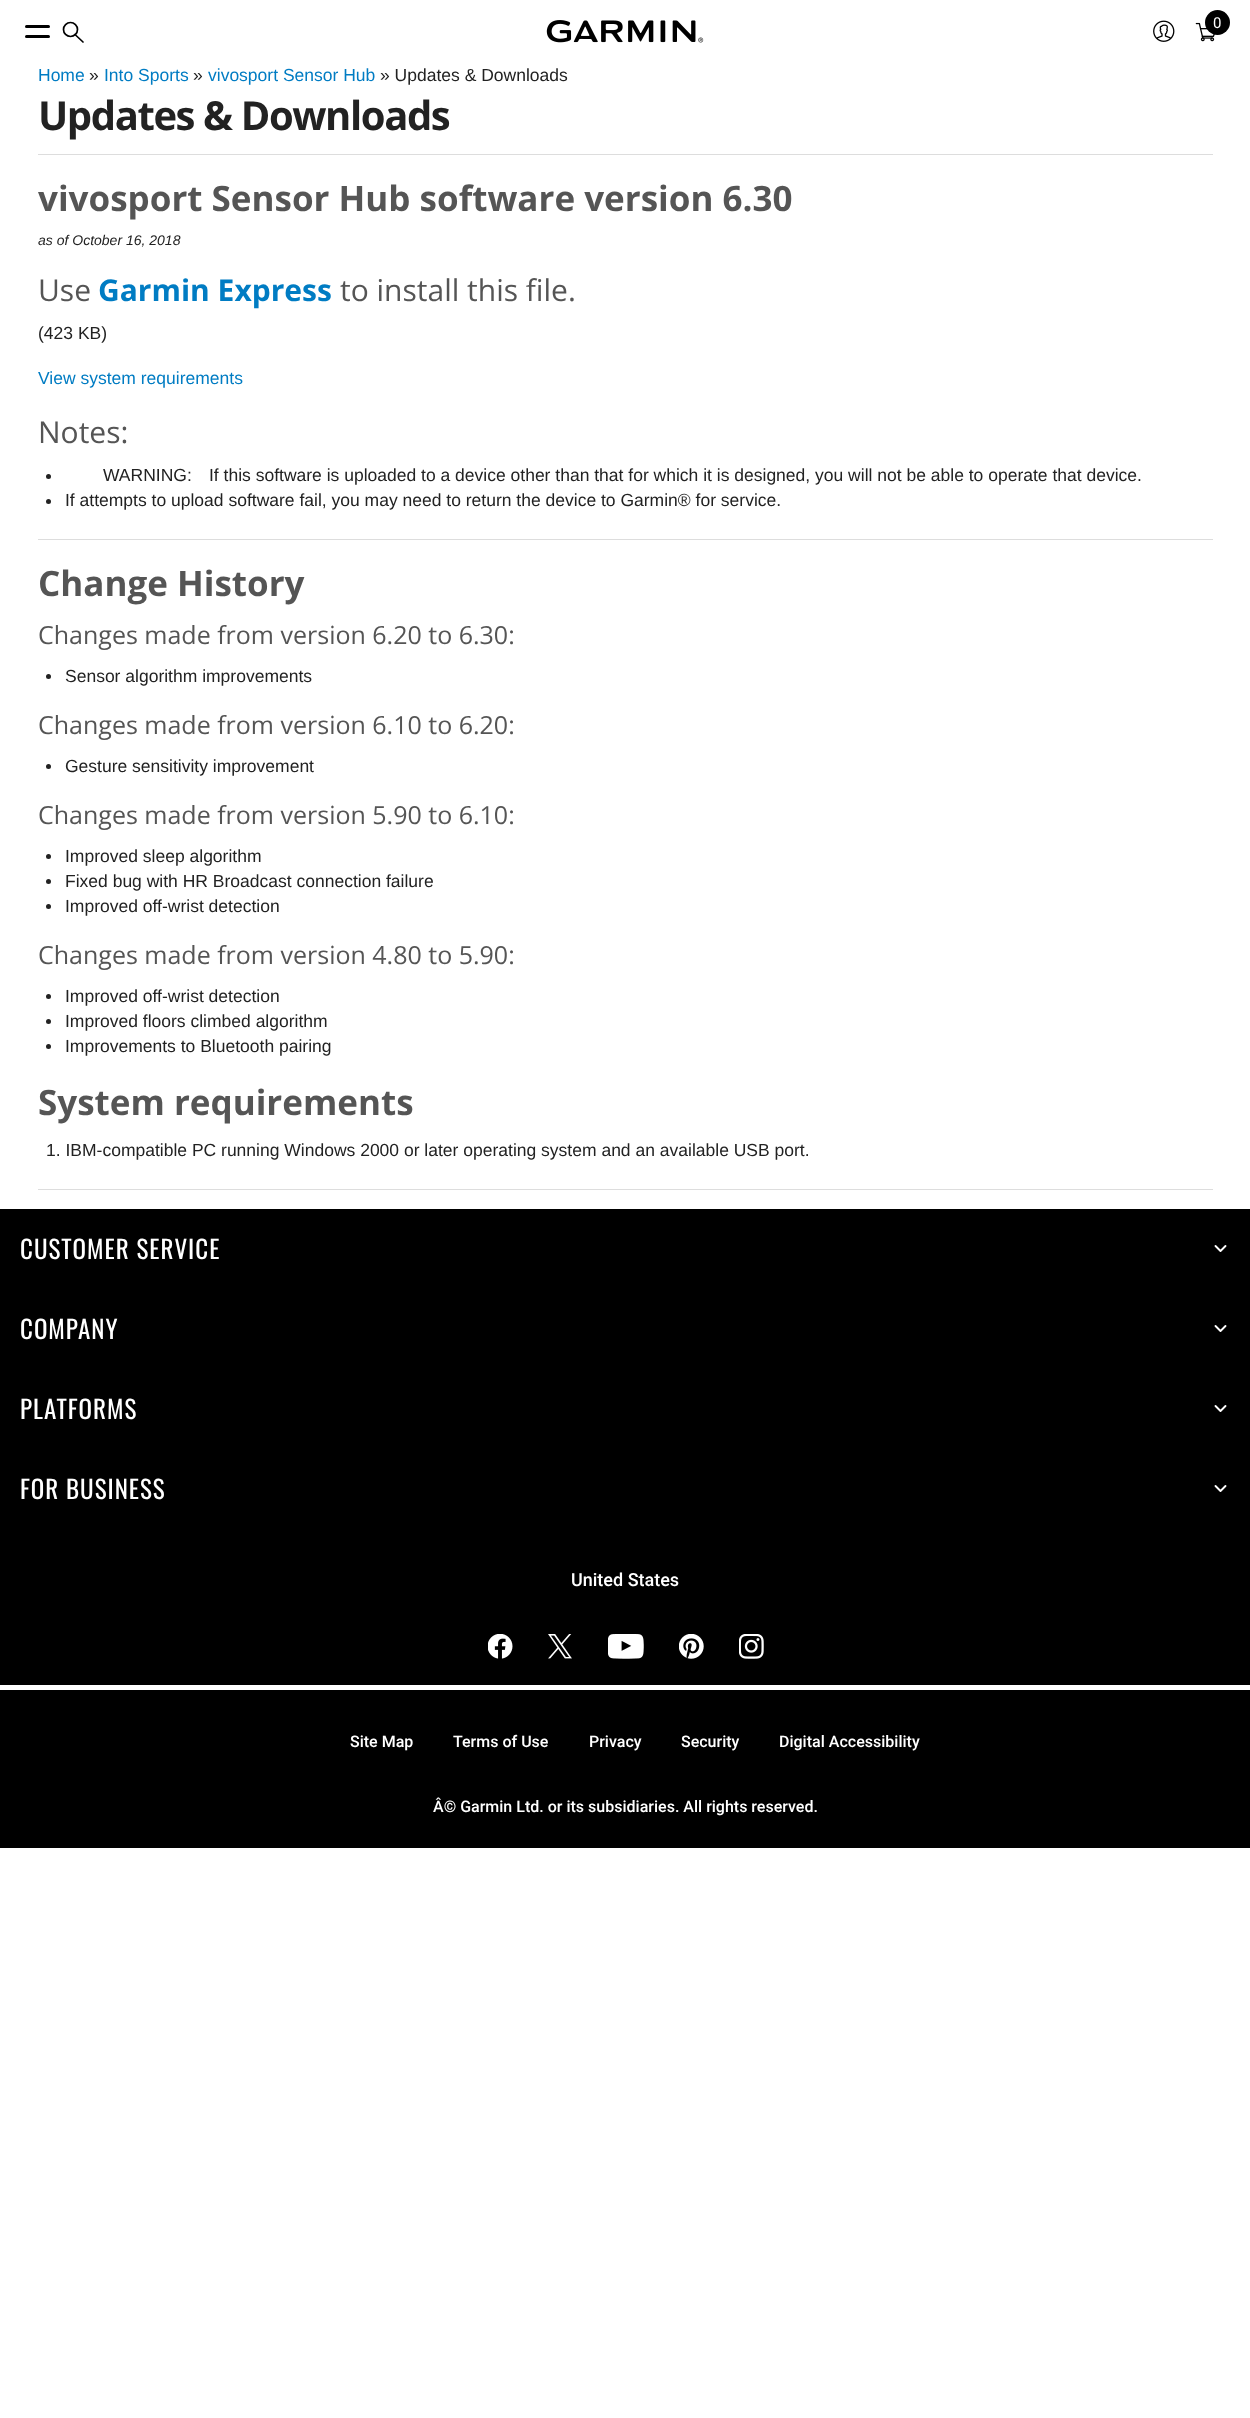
<svg xmlns="http://www.w3.org/2000/svg" width="1250" height="2418">
	<rect width="100%" height="100%" fill="#FFFFFF" />
	<rect x="25" y="25" width="25" height="3" rx="1.5" fill="#000000" />
	<rect x="25" y="35" width="25" height="3" rx="1.5" fill="#000000" />
	<image x="546" y="20" width="158" height="23" href="assets/img1.png" />
	<circle cx="70.5" cy="29.5" r="7" fill="none" stroke="#000000" stroke-width="1.7" />
	<path d="M75 34.5L83 42" fill="none" stroke="#000000" stroke-width="1.7" stroke-linecap="round" stroke-linejoin="round" />
	<image x="1153" y="20" width="22" height="22" href="assets/img2.png" />
	<image x="1195" y="22" width="20" height="20" href="assets/img3.png" />
	<circle cx="1217.5" cy="22.5" r="12.5" fill="#000000" />
	<text x="1213" y="28" font-family="Roboto" font-size="15" fill="#FFFFFF">0</text>
	<text x="38" y="81" font-family="Liberation Sans" font-size="17.5" fill="#007CC3">Home</text>
	<text x="89" y="81" font-family="Liberation Sans" font-size="17.5" fill="#222222">»</text>
	<text x="104" y="81" font-family="Liberation Sans" font-size="17.5" fill="#007CC3">Into Sports</text>
	<text x="193" y="81" font-family="Liberation Sans" font-size="17.5" fill="#222222">»</text>
	<text x="208" y="81" font-family="Liberation Sans" font-size="17.5" fill="#007CC3">vivosport Sensor Hub</text>
	<text x="380" y="81" font-family="Liberation Sans" font-size="17.5" fill="#222222">» Updates &amp; Downloads</text>
	<text x="38" y="130" font-family="Open Sans" font-size="40" font-weight="700" letter-spacing="-1.4" fill="#222222">Updates &amp; Downloads</text>
	<rect x="38" y="154" width="1175" height="1" fill="#DDDDDD" />
	<text x="38" y="211" font-family="Open Sans" font-size="35" font-weight="700" fill="#555555">vivosport Sensor Hub software version 6.30</text>
	<text x="38" y="245" font-family="Liberation Sans" font-size="14" font-style="italic" fill="#222222">as of October 16, 2018</text>
	<text x="38" y="301" font-family="Open Sans" font-size="30" fill="#555555">Use</text>
	<text x="98" y="301" font-family="Open Sans" font-size="30" font-weight="700" fill="#007CC3">Garmin Express</text>
	<text x="340" y="301" font-family="Open Sans" font-size="30" fill="#555555">to install this file.</text>
	<text x="38" y="339" font-family="Liberation Sans" font-size="17.5" fill="#222222">(423 KB)</text>
	<text x="38" y="384" font-family="Liberation Sans" font-size="17.5" fill="#007CC3">View system requirements</text>
	<text x="38" y="443" font-family="Open Sans" font-size="30" fill="#555555">Notes:</text>
	<circle cx="48.5" cy="476.5" r="2.5" fill="#222222" />
	<g font-family="Liberation Sans" font-size="17.5" fill="#222222">
		<text x="103" y="481">WARNING:</text>
		<text x="209" y="481">If this software is uploaded to a device other than that for which it is designed, you will not be able to operate that device.</text>
	</g>
	<circle cx="48.5" cy="501.5" r="2.5" fill="#222222" />
	<text x="65" y="506" font-family="Liberation Sans" font-size="17.5" fill="#222222">If attempts to upload software fail, you may need to return the device to Garmin® for service.</text>
	<rect x="38" y="539" width="1175" height="1" fill="#DDDDDD" />
	<text x="38" y="596" font-family="Open Sans" font-size="35" font-weight="700" fill="#555555">Change History</text>
	<text x="38" y="644" font-family="Open Sans" font-size="25" fill="#555555">Changes made from version 6.20 to 6.30:</text>
	<circle cx="48.5" cy="676.5" r="2.5" fill="#222222" />
	<text x="65" y="682" font-family="Liberation Sans" font-size="17.5" fill="#222222">Sensor algorithm improvements</text>
	<text x="38" y="734" font-family="Open Sans" font-size="25" fill="#555555">Changes made from version 6.10 to 6.20:</text>
	<circle cx="48.5" cy="766.5" r="2.5" fill="#222222" />
	<text x="65" y="772" font-family="Liberation Sans" font-size="17.5" fill="#222222">Gesture sensitivity improvement</text>
	<text x="38" y="824" font-family="Open Sans" font-size="25" fill="#555555">Changes made from version 5.90 to 6.10:</text>
	<circle cx="48.5" cy="856.5" r="2.5" fill="#222222" />
	<text x="65" y="862" font-family="Liberation Sans" font-size="17.5" fill="#222222">Improved sleep algorithm</text>
	<circle cx="48.5" cy="881.5" r="2.5" fill="#222222" />
	<text x="65" y="887" font-family="Liberation Sans" font-size="17.5" fill="#222222">Fixed bug with HR Broadcast connection failure</text>
	<circle cx="48.5" cy="906.5" r="2.5" fill="#222222" />
	<text x="65" y="912" font-family="Liberation Sans" font-size="17.5" fill="#222222">Improved off-wrist detection</text>
	<text x="38" y="964" font-family="Open Sans" font-size="25" fill="#555555">Changes made from version 4.80 to 5.90:</text>
	<circle cx="48.5" cy="996.5" r="2.5" fill="#222222" />
	<text x="65" y="1002" font-family="Liberation Sans" font-size="17.5" fill="#222222">Improved off-wrist detection</text>
	<circle cx="48.5" cy="1021.5" r="2.5" fill="#222222" />
	<text x="65" y="1027" font-family="Liberation Sans" font-size="17.5" fill="#222222">Improved floors climbed algorithm</text>
	<circle cx="48.5" cy="1046.5" r="2.5" fill="#222222" />
	<text x="65" y="1052" font-family="Liberation Sans" font-size="17.5" fill="#222222">Improvements to Bluetooth pairing</text>
	<text x="38" y="1115" font-family="Open Sans" font-size="35" font-weight="700" fill="#555555">System requirements</text>
	<text x="46" y="1156" font-family="Liberation Sans" font-size="17.5" fill="#222222">1. IBM-compatible PC running Windows 2000 or later operating system and an available USB port.</text>
	<rect x="38" y="1189" width="1175" height="1" fill="#DDDDDD" />
	<rect x="0" y="1209" width="1250" height="639" fill="#000000" />
	<text x="20" y="1259" font-family="Oswald" font-size="25" letter-spacing="1" fill="#FFFFFF">CUSTOMER SERVICE</text>
	<path d="M1225.5 1246L1220.5 1251L1215.5 1246" fill="none" stroke="#FFFFFF" stroke-width="1.9" stroke-linecap="round" stroke-linejoin="round" />
	<text x="20" y="1339" font-family="Oswald" font-size="25" letter-spacing="1" fill="#FFFFFF">COMPANY</text>
	<path d="M1225.5 1326L1220.5 1331L1215.5 1326" fill="none" stroke="#FFFFFF" stroke-width="1.9" stroke-linecap="round" stroke-linejoin="round" />
	<text x="20" y="1419" font-family="Oswald" font-size="25" letter-spacing="1" fill="#FFFFFF">PLATFORMS</text>
	<path d="M1225.5 1406L1220.5 1411L1215.5 1406" fill="none" stroke="#FFFFFF" stroke-width="1.9" stroke-linecap="round" stroke-linejoin="round" />
	<text x="20" y="1499" font-family="Oswald" font-size="25" letter-spacing="1" fill="#FFFFFF">FOR BUSINESS</text>
	<path d="M1225.5 1486L1220.5 1491L1215.5 1486" fill="none" stroke="#FFFFFF" stroke-width="1.9" stroke-linecap="round" stroke-linejoin="round" />
	<rect x="0" y="1685" width="1250" height="5" fill="#FFFFFF" />
	<text x="571" y="1586" font-family="Roboto" font-size="18" font-weight="500" fill="#FFFFFF">United States</text>
	<image x="488" y="1634" width="25" height="25" href="assets/img4.png" />
	<image x="548" y="1634" width="24" height="25" href="assets/img5.png" />
	<image x="608" y="1634" width="36" height="25" href="assets/img6.png" />
	<image x="679" y="1634" width="25" height="25" href="assets/img7.png" />
	<image x="739" y="1634" width="25" height="25" href="assets/img8.png" />
	<g font-family="Roboto" font-size="16" font-weight="500" fill="#FFFFFF">
		<text x="350" y="1747">Site Map</text>
		<text x="453" y="1747">Terms of Use</text>
		<text x="589" y="1747">Privacy</text>
		<text x="681" y="1747">Security</text>
		<text x="779" y="1747">Digital Accessibility</text>
		<text x="433" y="1812">Â© Garmin Ltd. or its subsidiaries. All rights reserved.</text>
	</g>
</svg>
